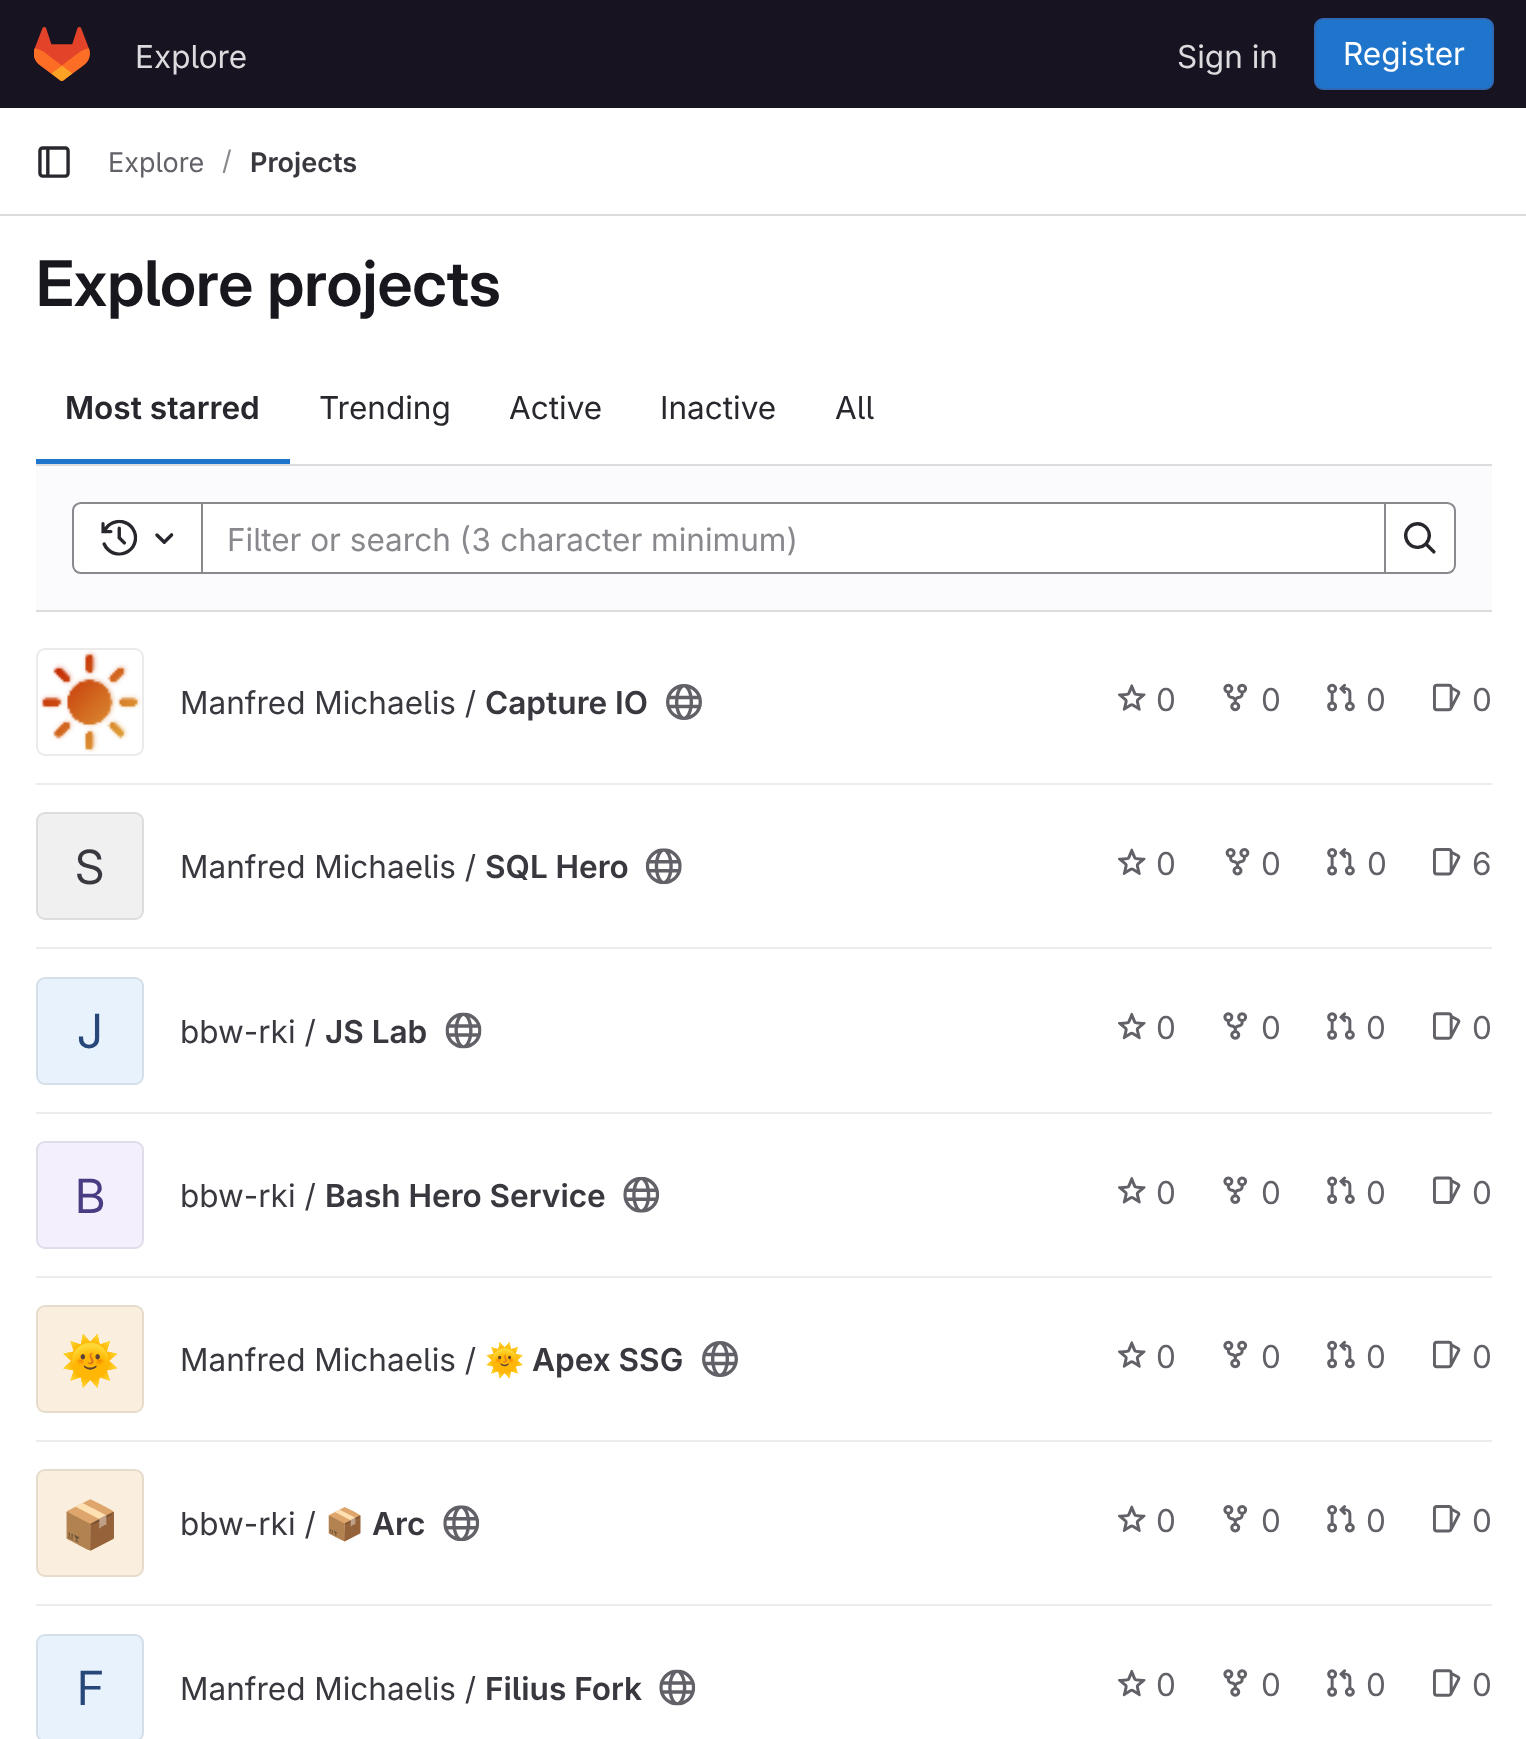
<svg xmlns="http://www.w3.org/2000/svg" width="1526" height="1739">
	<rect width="100%" height="100%" fill="#FFFFFF" />
	<rect x="0" y="0" width="1526" height="108" fill="#171321" />
	<image x="34" y="27" width="56" height="54" href="assets/img1.png" />
	<g font-family="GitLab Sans" font-size="31.5" fill="#DCDCDE">
		<text x="135" y="68">Explore</text>
		<text x="1177" y="68">Sign in</text>
	</g>
	<rect x="1315" y="19" width="178" height="70" rx="8" fill="#1F75CB" stroke="#2F68B4" stroke-width="2" />
	<text x="1343" y="65" font-family="GitLab Sans" font-size="31.5" fill="#FFFFFF">Register</text>
	<rect x="0" y="214" width="1526" height="2" fill="#DCDCDE" />
	<image x="38" y="146" width="32" height="32" href="assets/img2.png" />
	<text x="108" y="172" font-family="GitLab Sans" font-size="27" fill="#626168">Explore</text>
	<text x="222" y="170" font-family="GitLab Sans" font-size="27" fill="#89888D">/</text>
	<text x="250" y="172" font-family="'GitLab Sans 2'" font-size="27" font-weight="600" fill="#3A383F">Projects</text>
	<text x="36" y="306" font-family="GitLab Sans" font-size="63" font-weight="600" fill="#18171D">Explore projects</text>
	<text x="65" y="419" font-family="'GitLab Sans 2'" font-size="31.5" font-weight="600" fill="#28272D">Most starred</text>
	<rect x="36" y="459" width="254" height="5" fill="#1F75CB" />
	<g font-family="GitLab Sans" font-size="31.5" fill="#28272D">
		<text x="319" y="419">Trending</text>
		<text x="509" y="419">Active</text>
		<text x="660" y="419">Inactive</text>
		<text x="835" y="419">All</text>
	</g>
	<rect x="36" y="466" width="1456" height="144" fill="#FBFAFD" />
	<rect x="36" y="464" width="1456" height="2" fill="#DCDCDE" />
	<rect x="36" y="610" width="1456" height="2" fill="#DCDCDE" />
	<rect x="203" y="504" width="1181" height="68" fill="#FFFFFF" />
	<rect x="201" y="503" width="1184" height="70" fill="none" stroke="#89888D" stroke-width="2" />
	<path d="M81 503H202V573H81C76.5 573 73 569.5 73 565V511C73 506.5 76.5 503 81 503Z" fill="#FFFFFF" stroke="#89888D" stroke-width="2" />
	<image x="101" y="519" width="37" height="37" href="assets/img3.png" />
	<image x="155" y="533" width="19" height="11" href="assets/img4.png" />
	<text x="227" y="551" font-family="GitLab Sans" font-size="31.5" fill="#89888D">Filter or search (3 character minimum)</text>
	<path d="M1385 503H1447C1451.5 503 1455 506.5 1455 511V565C1455 569.5 1451.5 573 1447 573H1385Z" fill="#FFFFFF" stroke="#89888D" stroke-width="2" />
	<image x="1404" y="522" width="32" height="32" href="assets/img5.png" />
	<rect x="36" y="783" width="1456" height="2" fill="#ECECEF" />
	<image x="40" y="650" width="102" height="103" href="assets/img6.png" />
	<rect x="37" y="649" width="106" height="106" rx="8" fill="none" stroke="#EBEBEB" stroke-width="2" />
	<text x="180" y="714" font-family="GitLab Sans" font-size="31.5" fill="#3A383F">Manfred Michaelis /</text>
	<text x="485" y="714" font-family="'GitLab Sans 2'" font-size="31.5" font-weight="600" fill="#3A383F">Capture IO</text>
	<image x="666" y="684" width="36" height="36" href="assets/img7.png" />
	<image x="1118" y="684" width="28" height="27" href="assets/img8.png" />
	<text x="1156" y="711" font-family="GitLab Sans" font-size="31.5" fill="#626168">0</text>
	<image x="1223" y="683" width="25" height="29" href="assets/img9.png" />
	<text x="1261" y="711" font-family="GitLab Sans" font-size="31.5" fill="#626168">0</text>
	<image x="1327" y="683" width="28" height="29" href="assets/img10.png" />
	<text x="1366" y="711" font-family="GitLab Sans" font-size="31.5" fill="#626168">0</text>
	<image x="1432" y="683" width="29" height="29" href="assets/img11.png" />
	<text x="1472" y="711" font-family="GitLab Sans" font-size="31.5" fill="#626168">0</text>
	<rect x="36" y="947" width="1456" height="2" fill="#ECECEF" />
	<rect x="36" y="812" width="108" height="108" rx="9" fill="#F0F0F1" />
	<rect x="37" y="813" width="106" height="106" rx="8" fill="none" stroke="#050506" stroke-opacity="0.08" stroke-width="2" />
	<text x="75" y="884" font-family="'GitLab Sans 2'" font-size="47" fill="#3A383F">S</text>
	<text x="180" y="878" font-family="GitLab Sans" font-size="31.5" fill="#3A383F">Manfred Michaelis /</text>
	<text x="485" y="878" font-family="'GitLab Sans 2'" font-size="31.5" font-weight="600" fill="#3A383F">SQL Hero</text>
	<image x="645" y="848" width="37" height="37" href="assets/img12.png" />
	<image x="1118" y="848" width="28" height="27" href="assets/img13.png" />
	<text x="1156" y="875" font-family="GitLab Sans" font-size="31.5" fill="#626168">0</text>
	<image x="1225" y="848" width="25" height="28" href="assets/img14.png" />
	<text x="1261" y="875" font-family="GitLab Sans" font-size="31.5" fill="#626168">0</text>
	<image x="1327" y="848" width="28" height="28" href="assets/img15.png" />
	<text x="1367" y="875" font-family="GitLab Sans" font-size="31.5" fill="#626168">0</text>
	<image x="1432" y="848" width="29" height="28" href="assets/img16.png" />
	<text x="1472" y="875" font-family="GitLab Sans" font-size="31.5" fill="#626168">6</text>
	<rect x="36" y="1112" width="1456" height="2" fill="#ECECEF" />
	<rect x="36" y="977" width="108" height="108" rx="9" fill="#E7F2FC" />
	<rect x="37" y="978" width="106" height="106" rx="8" fill="none" stroke="#050506" stroke-opacity="0.08" stroke-width="2" />
	<text x="77" y="1048" font-family="'GitLab Sans 2'" font-size="47" fill="#284779">J</text>
	<text x="180" y="1043" font-family="GitLab Sans" font-size="31.5" fill="#3A383F">bbw-rki /</text>
	<text x="325" y="1043" font-family="'GitLab Sans 2'" font-size="31.5" font-weight="600" fill="#3A383F">JS Lab</text>
	<image x="445" y="1012" width="37" height="37" href="assets/img17.png" />
	<image x="1118" y="1012" width="28" height="28" href="assets/img18.png" />
	<text x="1156" y="1039" font-family="GitLab Sans" font-size="31.5" fill="#626168">0</text>
	<image x="1223" y="1012" width="25" height="28" href="assets/img19.png" />
	<text x="1261" y="1039" font-family="GitLab Sans" font-size="31.5" fill="#626168">0</text>
	<image x="1327" y="1012" width="28" height="28" href="assets/img20.png" />
	<text x="1366" y="1039" font-family="GitLab Sans" font-size="31.5" fill="#626168">0</text>
	<image x="1432" y="1012" width="29" height="28" href="assets/img21.png" />
	<text x="1472" y="1039" font-family="GitLab Sans" font-size="31.5" fill="#626168">0</text>
	<rect x="36" y="1276" width="1456" height="2" fill="#ECECEF" />
	<rect x="36" y="1141" width="108" height="108" rx="9" fill="#F3EFFC" />
	<rect x="37" y="1142" width="106" height="106" rx="8" fill="none" stroke="#050506" stroke-opacity="0.08" stroke-width="2" />
	<text x="75" y="1213" font-family="'GitLab Sans 2'" font-size="47" fill="#493C83">B</text>
	<text x="180" y="1207" font-family="GitLab Sans" font-size="31.5" fill="#3A383F">bbw-rki /</text>
	<text x="325" y="1207" font-family="'GitLab Sans 2'" font-size="31.5" font-weight="600" fill="#3A383F">Bash Hero Service</text>
	<image x="623" y="1176" width="37" height="37" href="assets/img22.png" />
	<image x="1118" y="1177" width="28" height="27" href="assets/img23.png" />
	<text x="1156" y="1204" font-family="GitLab Sans" font-size="31.5" fill="#626168">0</text>
	<image x="1223" y="1176" width="25" height="28" href="assets/img24.png" />
	<text x="1261" y="1204" font-family="GitLab Sans" font-size="31.5" fill="#626168">0</text>
	<image x="1327" y="1176" width="28" height="28" href="assets/img25.png" />
	<text x="1366" y="1204" font-family="GitLab Sans" font-size="31.5" fill="#626168">0</text>
	<image x="1432" y="1176" width="29" height="28" href="assets/img26.png" />
	<text x="1472" y="1204" font-family="GitLab Sans" font-size="31.5" fill="#626168">0</text>
	<rect x="36" y="1440" width="1456" height="2" fill="#ECECEF" />
	<rect x="36" y="1305" width="108" height="108" rx="9" fill="#FAEFDE" />
	<rect x="37" y="1306" width="106" height="106" rx="8" fill="none" stroke="#050506" stroke-opacity="0.08" stroke-width="2" />
	<text x="61" y="1377" font-family="'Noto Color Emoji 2'" font-size="47" fill="#693C14">🌞</text>
	<text x="180" y="1371" font-family="GitLab Sans" font-size="31.5" fill="#3A383F">Manfred Michaelis /</text>
	<text x="485" y="1371" font-family="Noto Color Emoji" font-size="31.5" fill="#3A383F">🌞</text>
	<text x="532" y="1371" font-family="'GitLab Sans 2'" font-size="31.5" font-weight="600" fill="#3A383F">Apex SSG</text>
	<image x="702" y="1341" width="36" height="36" href="assets/img7.png" />
	<image x="1118" y="1341" width="28" height="27" href="assets/img8.png" />
	<text x="1156" y="1368" font-family="GitLab Sans" font-size="31.5" fill="#626168">0</text>
	<image x="1223" y="1340" width="25" height="29" href="assets/img9.png" />
	<text x="1261" y="1368" font-family="GitLab Sans" font-size="31.5" fill="#626168">0</text>
	<image x="1327" y="1340" width="28" height="29" href="assets/img10.png" />
	<text x="1366" y="1368" font-family="GitLab Sans" font-size="31.5" fill="#626168">0</text>
	<image x="1432" y="1340" width="29" height="29" href="assets/img11.png" />
	<text x="1472" y="1368" font-family="GitLab Sans" font-size="31.5" fill="#626168">0</text>
	<rect x="36" y="1604" width="1456" height="2" fill="#ECECEF" />
	<rect x="36" y="1469" width="108" height="108" rx="9" fill="#FAEFDE" />
	<rect x="37" y="1470" width="106" height="106" rx="8" fill="none" stroke="#050506" stroke-opacity="0.08" stroke-width="2" />
	<text x="61" y="1541" font-family="'Noto Color Emoji 2'" font-size="47" fill="#693C14">📦</text>
	<text x="180" y="1535" font-family="GitLab Sans" font-size="31.5" fill="#3A383F">bbw-rki /</text>
	<text x="325" y="1535" font-family="Noto Color Emoji" font-size="31.5" fill="#3A383F">📦</text>
	<text x="372" y="1535" font-family="'GitLab Sans 2'" font-size="31.5" font-weight="600" fill="#3A383F">Arc</text>
	<image x="443" y="1505" width="37" height="37" href="assets/img27.png" />
	<image x="1118" y="1505" width="28" height="27" href="assets/img28.png" />
	<text x="1156" y="1532" font-family="GitLab Sans" font-size="31.5" fill="#626168">0</text>
	<image x="1223" y="1505" width="25" height="28" href="assets/img29.png" />
	<text x="1261" y="1532" font-family="GitLab Sans" font-size="31.5" fill="#626168">0</text>
	<image x="1327" y="1505" width="28" height="28" href="assets/img30.png" />
	<text x="1366" y="1532" font-family="GitLab Sans" font-size="31.5" fill="#626168">0</text>
	<image x="1432" y="1505" width="29" height="28" href="assets/img31.png" />
	<text x="1472" y="1532" font-family="GitLab Sans" font-size="31.5" fill="#626168">0</text>
	<rect x="36" y="1634" width="108" height="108" rx="9" fill="#E7F2FC" />
	<rect x="37" y="1635" width="106" height="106" rx="8" fill="none" stroke="#050506" stroke-opacity="0.08" stroke-width="2" />
	<text x="77" y="1705" font-family="'GitLab Sans 2'" font-size="47" fill="#284779">F</text>
	<text x="180" y="1700" font-family="GitLab Sans" font-size="31.5" fill="#3A383F">Manfred Michaelis /</text>
	<text x="485" y="1700" font-family="'GitLab Sans 2'" font-size="31.5" font-weight="600" fill="#3A383F">Filius Fork</text>
	<image x="659" y="1669" width="37" height="37" href="assets/img32.png" />
	<image x="1118" y="1669" width="28" height="28" href="assets/img33.png" />
	<text x="1156" y="1696" font-family="GitLab Sans" font-size="31.5" fill="#626168">0</text>
	<image x="1223" y="1669" width="25" height="28" href="assets/img34.png" />
	<text x="1261" y="1696" font-family="GitLab Sans" font-size="31.5" fill="#626168">0</text>
	<image x="1327" y="1669" width="28" height="28" href="assets/img35.png" />
	<text x="1366" y="1696" font-family="GitLab Sans" font-size="31.5" fill="#626168">0</text>
	<image x="1432" y="1669" width="29" height="28" href="assets/img36.png" />
	<text x="1472" y="1696" font-family="GitLab Sans" font-size="31.5" fill="#626168">0</text>
</svg>
